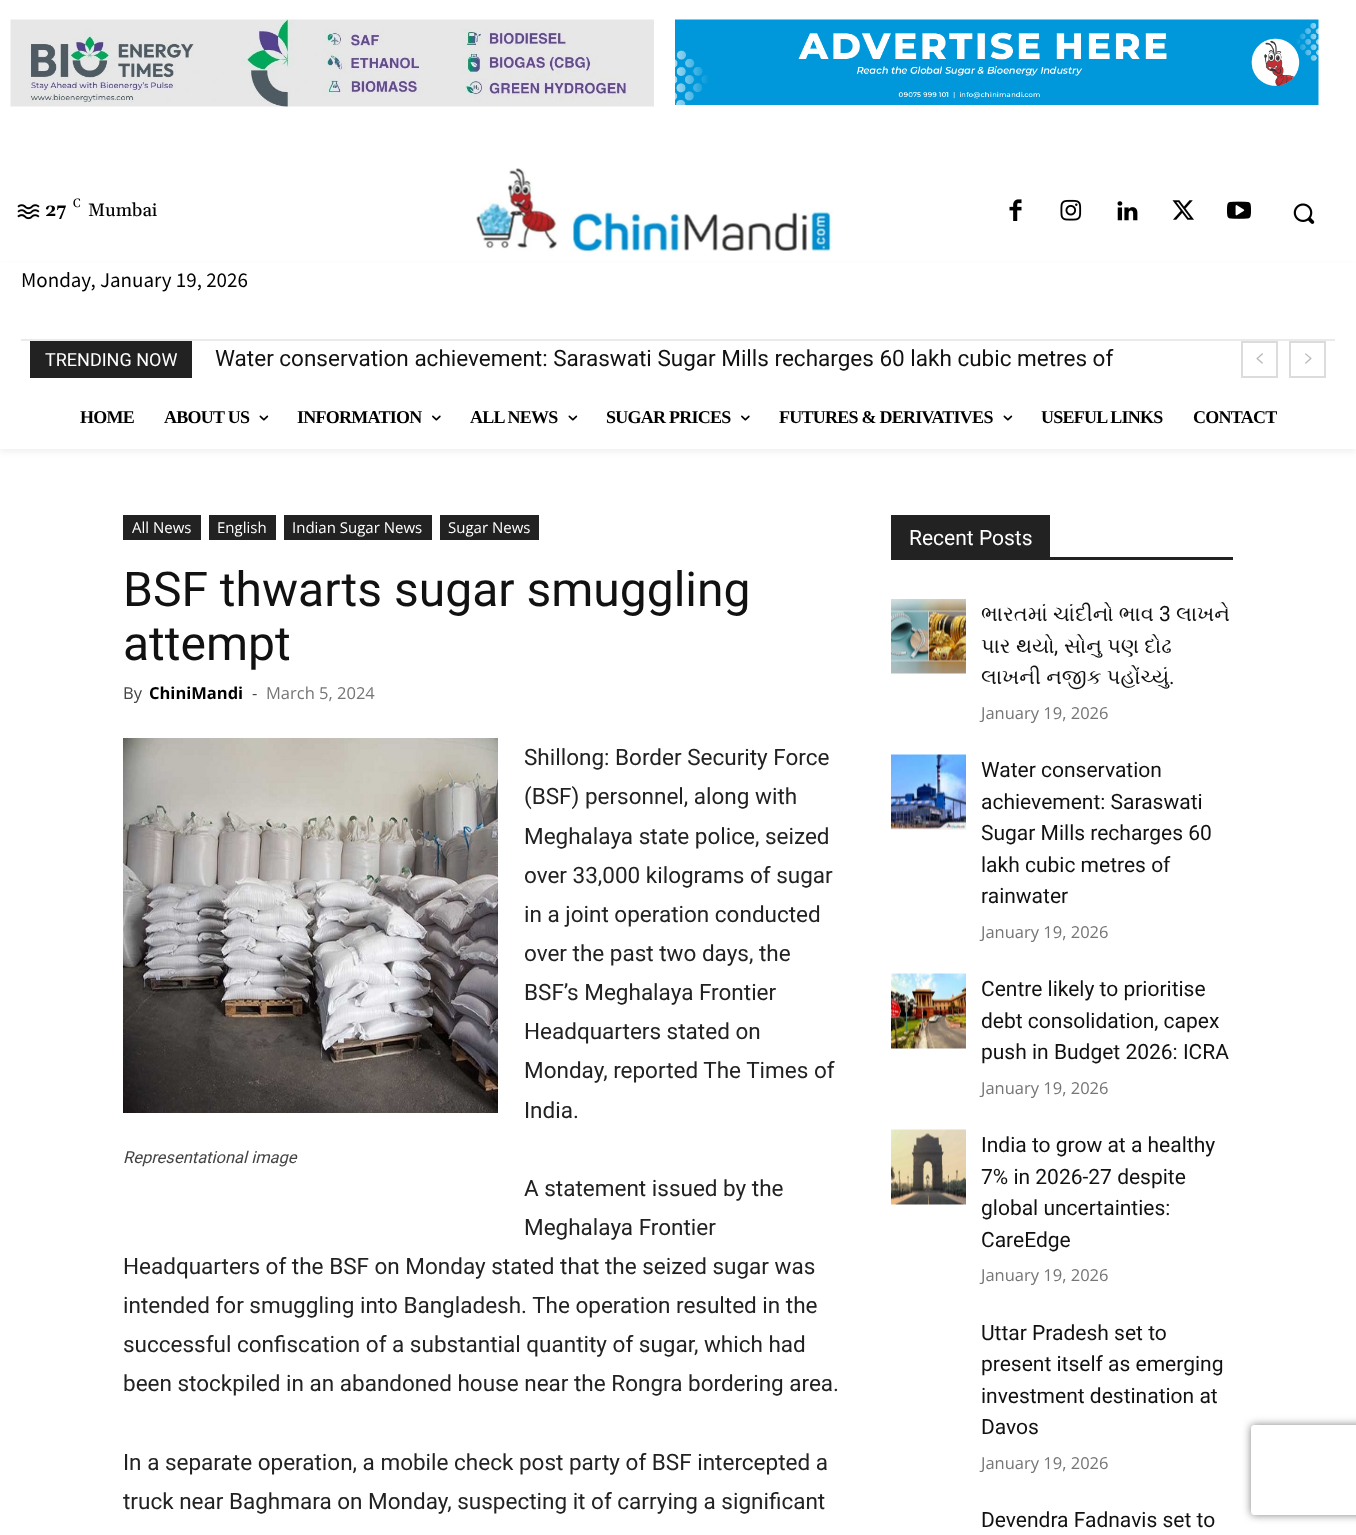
<svg xmlns="http://www.w3.org/2000/svg" width="1356" height="1535">
	<defs>
		<clipPath id="clip1"><path d="M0 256H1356V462H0ZM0 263H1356V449H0Z" clip-rule="evenodd" /></clipPath>
		<clipPath id="clip2"><path d="M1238 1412H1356V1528H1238ZM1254 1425H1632C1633.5 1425 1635 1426.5 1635 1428V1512C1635 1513.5 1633.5 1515 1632 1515H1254C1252.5 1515 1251 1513.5 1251 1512V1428C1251 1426.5 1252.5 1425 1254 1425Z" clip-rule="evenodd" /></clipPath>
	</defs>
	<rect width="100%" height="100%" fill="#FFFFFF" />
	<image x="10" y="19" width="644" height="88" href="assets/img1.png" />
	<image x="675" y="19" width="644" height="86" href="assets/img2.png" />
	<image x="17" y="204" width="23" height="16" href="assets/img3.png" />
	<text x="73" y="207" font-family="Gelasio" font-size="12" fill="#000000">C</text>
	<text x="45" y="216" font-family="Gelasio" font-size="18" font-weight="700" fill="#000000">27</text>
	<text x="88" y="216" font-family="Gelasio" font-size="18" font-weight="500" fill="#000000">Mumbai</text>
	<image x="476" y="168" width="357" height="84" href="assets/img4.png" />
	<image x="1009" y="199" width="13" height="22" href="assets/img5.png" />
	<image x="1060" y="199" width="22" height="22" href="assets/img6.png" />
	<image x="1117" y="201" width="21" height="20" href="assets/img7.png" />
	<image x="1172" y="200" width="22" height="20" href="assets/img8.png" />
	<image x="1227" y="201" width="24" height="18" href="assets/img9.png" />
	<image x="1293" y="203" width="22" height="21" href="assets/img10.png" />
	<rect x="21" y="339" width="1314" height="2" fill="#EAEAEA" />
	<rect x="30" y="341" width="162" height="37" fill="#222222" />
	<rect x="1242" y="342" width="35" height="35" fill="none" stroke="#DCDCDC" stroke-width="2" />
	<image x="1256" y="353" width="7" height="11" href="assets/img11.png" />
	<rect x="1290" y="342" width="35" height="35" fill="none" stroke="#DCDCDC" stroke-width="2" />
	<image x="1305" y="353" width="7" height="11" href="assets/img12.png" />
	<g clip-path="url(#clip1)">
		<rect x="0" y="266" width="1356" height="186" fill="#000000" fill-opacity="0.06" filter="blur(3px)" />
	</g>
	<text x="21" y="287" font-family="Source Sans Pro" font-size="21" fill="#000000">Monday, January 19, 2026</text>
	<text x="45" y="366" font-family="Roboto" font-size="18" fill="#FFFFFF">TRENDING NOW</text>
	<text x="215" y="366" font-family="Roboto" font-size="22.5" fill="#111111">Water conservation achievement: Saraswati Sugar Mills recharges 60 lakh cubic metres of</text>
	<g font-family="Liberation Serif" font-size="18" font-weight="700" letter-spacing="-0.75" fill="#000000">
		<text x="80" y="423">HOME</text>
		<text x="164" y="423">ABOUT US</text>
	</g>
	<image x="259" y="415" width="10" height="6" href="assets/img13.png" />
	<text x="297" y="423" font-family="Liberation Serif" font-size="18" font-weight="700" letter-spacing="-0.75" fill="#000000">INFORMATION</text>
	<image x="432" y="415" width="9" height="6" href="assets/img14.png" />
	<text x="470" y="423" font-family="Liberation Serif" font-size="18" font-weight="700" letter-spacing="-0.75" fill="#000000">ALL NEWS</text>
	<image x="568" y="415" width="10" height="6" href="assets/img13.png" />
	<text x="606" y="423" font-family="Liberation Serif" font-size="18" font-weight="700" letter-spacing="-0.75" fill="#000000">SUGAR PRICES</text>
	<image x="741" y="415" width="9" height="6" href="assets/img14.png" />
	<text x="779" y="423" font-family="Liberation Serif" font-size="18" font-weight="700" letter-spacing="-0.75" fill="#000000">FUTURES &amp; DERIVATIVES</text>
	<image x="1003" y="415" width="10" height="6" href="assets/img13.png" />
	<g font-family="Liberation Serif" font-size="18" font-weight="700" letter-spacing="-0.75" fill="#000000">
		<text x="1041" y="423">USEFUL LINKS</text>
		<text x="1193" y="423">CONTACT</text>
	</g>
	<rect x="123" y="515" width="78" height="25" fill="#222222" />
	<text x="132" y="533" font-family="Open Sans" font-size="15" fill="#FFFFFF">All News</text>
	<rect x="209" y="515" width="67" height="25" fill="#222222" />
	<text x="217" y="533" font-family="Open Sans" font-size="15" fill="#FFFFFF">English</text>
	<rect x="284" y="515" width="148" height="25" fill="#222222" />
	<text x="292" y="533" font-family="Open Sans" font-size="15" fill="#FFFFFF">Indian Sugar News</text>
	<rect x="440" y="515" width="99" height="25" fill="#222222" />
	<text x="448" y="533" font-family="Open Sans" font-size="15" fill="#FFFFFF">Sugar News</text>
	<g font-family="Roboto" font-size="48" fill="#111111">
		<text x="123" y="606">BSF thwarts sugar smuggling</text>
		<text x="123" y="660">attempt</text>
	</g>
	<text x="123" y="699" font-family="Open Sans" font-size="16.5" fill="#444444">By</text>
	<text x="149" y="699" font-family="Open Sans" font-size="16.5" font-weight="700" fill="#000000">ChiniMandi</text>
	<text x="252" y="699" font-family="Open Sans" font-size="16.5" fill="#444444">-</text>
	<text x="266" y="699" font-family="Open Sans" font-size="16.5" fill="#767676">March 5, 2024</text>
	<g font-family="Roboto" font-size="22.5" fill="#222222">
		<text x="524" y="765">Shillong: Border Security Force</text>
		<text x="524" y="804">(BSF) personnel, along with</text>
		<text x="524" y="844">Meghalaya state police, seized</text>
		<text x="524" y="883">over 33,000 kilograms of sugar</text>
		<text x="524" y="922">in a joint operation conducted</text>
		<text x="524" y="961">over the past two days, the</text>
		<text x="524" y="1000">BSF’s Meghalaya Frontier</text>
		<text x="524" y="1039">Headquarters stated on</text>
		<text x="524" y="1078">Monday, reported The Times of</text>
		<text x="524" y="1118">India.</text>
	</g>
	<image x="123" y="738" width="375" height="375" href="assets/img15.png" />
	<text x="123" y="1163" font-family="Roboto" font-size="16.5" font-style="italic" fill="#444444">Representational image</text>
	<g font-family="Roboto" font-size="22.5" fill="#222222">
		<text x="524" y="1196">A statement issued by the</text>
		<text x="524" y="1235">Meghalaya Frontier</text>
		<text x="123" y="1274">Headquarters of the BSF on Monday stated that the seized sugar was</text>
		<text x="123" y="1313">intended for smuggling into Bangladesh. The operation resulted in the</text>
		<text x="123" y="1352">successful confiscation of a substantial quantity of sugar, which had</text>
		<text x="123" y="1391">been stockpiled in an abandoned house near the Rongra bordering area.</text>
		<text x="123" y="1470">In a separate operation, a mobile check post party of BSF intercepted a</text>
		<text x="123" y="1509">truck near Baghmara on Monday, suspecting it of carrying a significant</text>
	</g>
	<rect x="891" y="557" width="342" height="3" fill="#222222" />
	<rect x="891" y="515" width="159" height="42" fill="#222222" />
	<text x="909" y="545" font-family="Roboto" font-size="21" fill="#FFFFFF">Recent Posts</text>
	<image x="891" y="599" width="75" height="75" href="assets/img16.png" />
	<text x="981" y="621" font-family="FreeSerif" font-size="21" fill="#111111">ભારતમાં ચાંદીનો ભાવ</text>
	<text x="1159" y="621" font-family="Roboto" font-size="21" fill="#111111">3</text>
	<g font-family="FreeSerif" font-size="21" fill="#111111">
		<text x="1176" y="621">લાખને</text>
		<text x="981" y="653">પાર થયો</text>
	</g>
	<text x="1054" y="653" font-family="Roboto" font-size="21" fill="#111111">,</text>
	<g font-family="FreeSerif" font-size="21" fill="#111111">
		<text x="1064" y="653">સોનુ પણ દોઢ</text>
		<text x="981" y="684">લાખની નજીક પહોંચ્યું</text>
	</g>
	<text x="1169" y="684" font-family="Roboto" font-size="21" fill="#111111">.</text>
	<text x="981" y="719" font-family="Open Sans" font-size="16.5" fill="#767676">January 19, 2026</text>
	<image x="891" y="754" width="75" height="76" href="assets/img17.png" />
	<g font-family="Roboto" font-size="21" fill="#111111">
		<text x="981" y="777">Water conservation</text>
		<text x="981" y="809">achievement: Saraswati</text>
		<text x="981" y="840">Sugar Mills recharges 60</text>
		<text x="981" y="872">lakh cubic metres of</text>
		<text x="981" y="903">rainwater</text>
	</g>
	<text x="981" y="938" font-family="Open Sans" font-size="16.5" fill="#767676">January 19, 2026</text>
	<image x="891" y="973" width="75" height="76" href="assets/img18.png" />
	<g font-family="Roboto" font-size="21" fill="#111111">
		<text x="981" y="996">Centre likely to prioritise</text>
		<text x="981" y="1028">debt consolidation, capex</text>
		<text x="981" y="1059">push in Budget 2026: ICRA</text>
	</g>
	<text x="981" y="1094" font-family="Open Sans" font-size="16.5" fill="#767676">January 19, 2026</text>
	<image x="891" y="1129" width="75" height="76" href="assets/img19.png" />
	<g font-family="Roboto" font-size="21" fill="#111111">
		<text x="981" y="1152">India to grow at a healthy</text>
		<text x="981" y="1184">7% in 2026-27 despite</text>
		<text x="981" y="1215">global uncertainties:</text>
		<text x="981" y="1247">CareEdge</text>
	</g>
	<text x="981" y="1281" font-family="Open Sans" font-size="16.5" fill="#767676">January 19, 2026</text>
	<g font-family="Roboto" font-size="21" fill="#111111">
		<text x="981" y="1340">Uttar Pradesh set to</text>
		<text x="981" y="1371">present itself as emerging</text>
		<text x="981" y="1403">investment destination at</text>
		<text x="981" y="1434">Davos</text>
	</g>
	<text x="981" y="1469" font-family="Open Sans" font-size="16.5" fill="#767676">January 19, 2026</text>
	<text x="981" y="1527" font-family="Roboto" font-size="21" fill="#111111">Devendra Fadnavis set to</text>
	<g clip-path="url(#clip2)">
		<rect x="1251" y="1425" width="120" height="90" rx="3" fill="#808080" filter="blur(4px)" />
	</g>
</svg>
